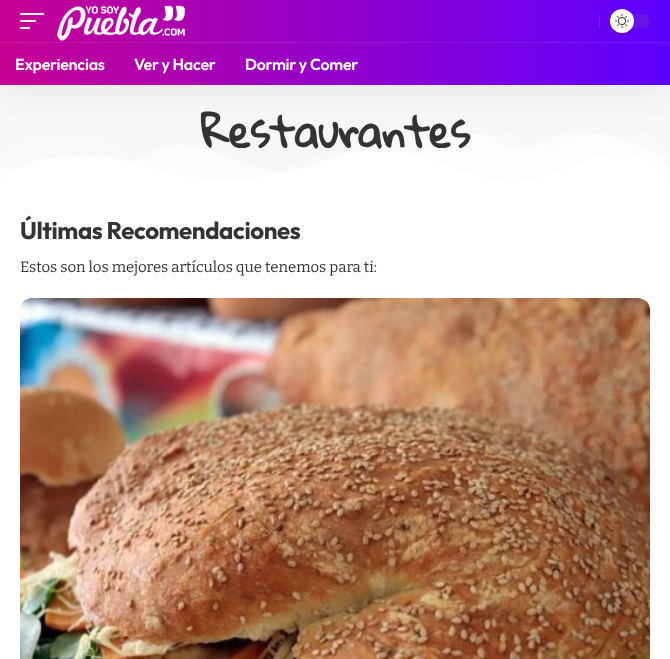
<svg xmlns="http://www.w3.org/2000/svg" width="670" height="659">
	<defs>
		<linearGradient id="g1" gradientUnits="userSpaceOnUse" x1="0" y1="43" x2="670" y2="42"><stop offset="0" stop-color="#C70193" /><stop offset="1" stop-color="#5D00FE" /></linearGradient>
		<linearGradient id="g2" gradientUnits="userSpaceOnUse" x1="0" y1="43" x2="670" y2="42"><stop offset="0" stop-color="#CD1A9E" /><stop offset="1" stop-color="#6D1AFE" /></linearGradient>
	</defs>
	<rect width="100%" height="100%" fill="#FFFFFF" />
	<rect x="0" y="85" width="670" height="103" fill="#F7F7F7" />
	<image x="0" y="133" width="670" height="55" href="assets/img3.png" />
	<rect x="0" y="4" width="670" height="85" fill="#000000" fill-opacity="0.07" filter="blur(15px)" />
	<rect x="0" y="0" width="670" height="85" fill="url(#g1)" />
	<rect x="0" y="42" width="670" height="1" fill="url(#g2)" />
	<rect x="20" y="13" width="24" height="2" rx="1" fill="#FFFFFF" />
	<rect x="20" y="20" width="16" height="2" rx="1" fill="#FFFFFF" />
	<rect x="20" y="27" width="10" height="2" rx="1" fill="#FFFFFF" />
	<image x="57" y="5" width="129" height="36" href="assets/img1.png" />
	<rect x="599" y="14" width="1" height="14" fill="#771AF4" />
	<rect x="610" y="14" width="40" height="14" rx="7" fill="#888888" fill-opacity="0.15" />
	<rect x="610" y="10" width="24" height="24" rx="12" fill="#000000" fill-opacity="0.12" filter="blur(2px)" />
	<circle cx="622" cy="21" r="12" fill="#FFFFFF" />
	<image x="615" y="14" width="14" height="14" href="assets/img2.png" />
	<g font-family="Outfit" font-size="16" font-weight="600" letter-spacing="-0.25" fill="#FFFFFF">
		<text x="15" y="70">Experiencias</text>
		<text x="134" y="70">Ver y Hacer</text>
		<text x="245" y="70">Dormir y Comer</text>
	</g>
	<text x="201" y="148" font-family="Gloria Hallelujah" font-size="41" font-weight="700" letter-spacing="-0.8" fill="#333333">Restaurantes</text>
	<text x="20" y="239" font-family="Outfit" font-size="24" font-weight="700" letter-spacing="-0.4" fill="#333333">Últimas Recomendaciones</text>
	<text x="20" y="272" font-family="Bitter" font-size="15" fill="#333333">Estos son los mejores artículos que tenemos para ti:</text>
	<image x="20" y="298" width="630" height="361" href="assets/img4.png" />
</svg>
